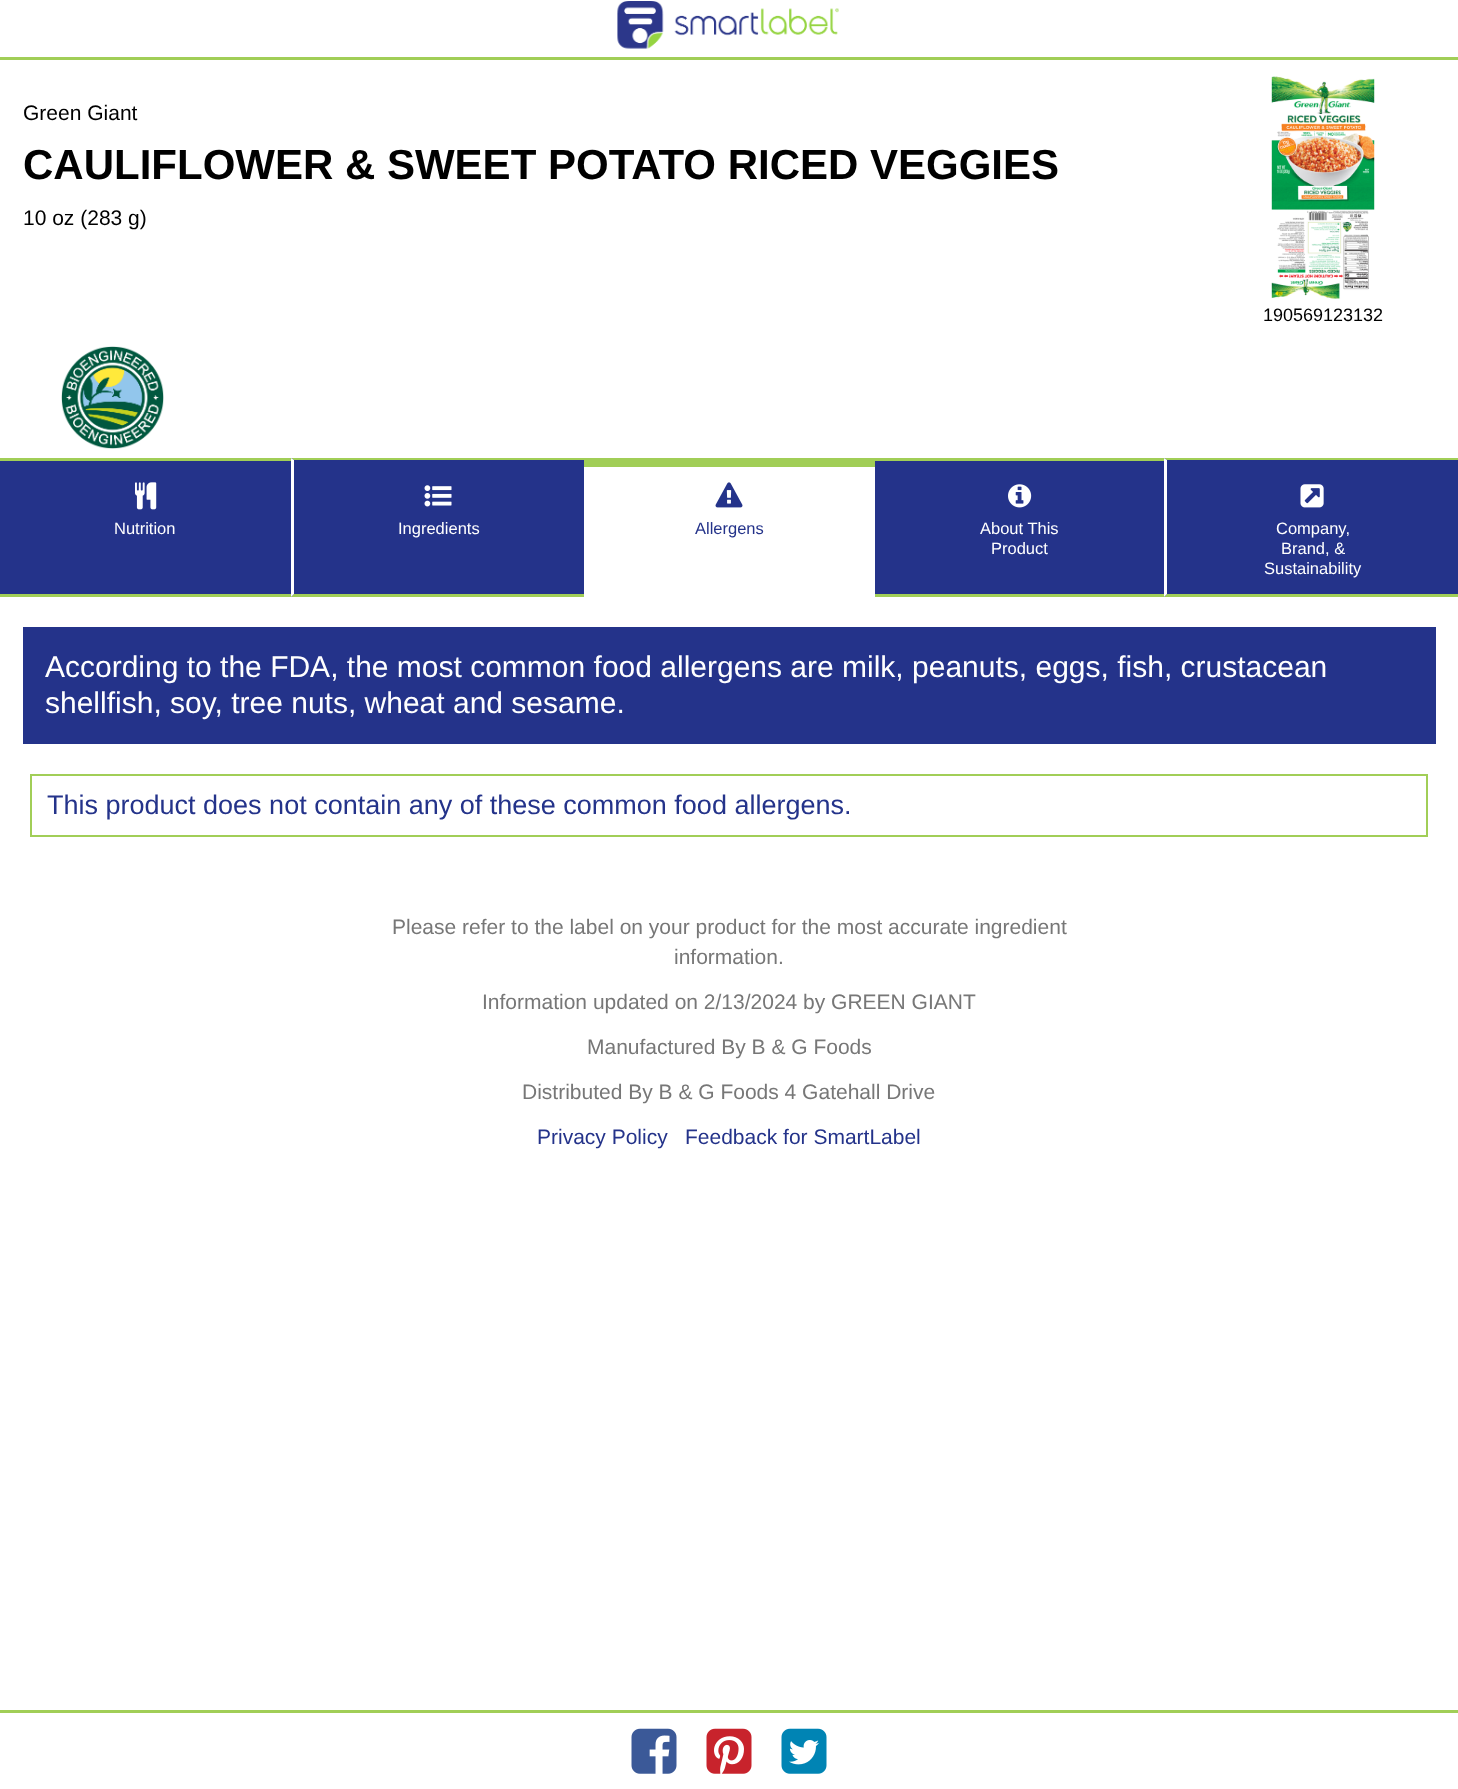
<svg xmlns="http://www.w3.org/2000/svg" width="1458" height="1789">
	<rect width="100%" height="100%" fill="#FFFFFF" />
	<rect x="0" y="57" width="1458" height="3" fill="#A1CE57" />
	<image x="617" y="1" width="222" height="48" href="assets/img1.png" />
	<text x="23" y="120" font-family="Liberation Sans" font-size="21" fill="#000000">Green Giant</text>
	<text x="23" y="179" font-family="Liberation Sans" font-size="42" font-weight="700" fill="#000000">CAULIFLOWER &amp; SWEET POTATO RICED VEGGIES</text>
	<text x="23" y="225" font-family="Liberation Sans" font-size="21" fill="#000000">10 oz (283 g)</text>
	<image x="1271" y="76" width="104" height="223" href="assets/img2.png" />
	<text x="1263" y="321" font-family="Liberation Sans" font-size="18" fill="#000000">190569123132</text>
	<image x="61" y="346" width="103" height="103" href="assets/img3.png" />
	<rect x="0" y="461" width="291" height="133" fill="#24338A" />
	<rect x="0" y="458" width="291" height="3" fill="#A1CE57" />
	<rect x="0" y="594" width="291" height="3" fill="#A1CE57" />
	<image x="135" y="482" width="22" height="28" href="assets/img4.png" />
	<text x="114" y="534" font-family="Liberation Sans" font-size="16.5" fill="#FFFFFF">Nutrition</text>
	<rect x="291" y="458" width="293" height="139" fill="#24338A" />
	<path d="M291 458H584V460H294Z" fill="#A1CE57" />
	<path d="M584 597H291L294 594H584Z" fill="#A1CE57" />
	<path d="M291 597V458L294 460V594Z" fill="#FFFFFF" />
	<image x="424" y="485" width="28" height="22" href="assets/img5.png" />
	<text x="398" y="534" font-family="Liberation Sans" font-size="16.5" fill="#FFFFFF">Ingredients</text>
	<rect x="584" y="458" width="291" height="9" fill="#A1CE57" />
	<image x="715" y="482" width="28" height="26" href="assets/img6.png" />
	<text x="695" y="534" font-family="Liberation Sans" font-size="16.5" fill="#24338A">Allergens</text>
	<rect x="875" y="461" width="289" height="133" fill="#24338A" />
	<rect x="875" y="458" width="289" height="3" fill="#A1CE57" />
	<rect x="875" y="594" width="289" height="3" fill="#A1CE57" />
	<image x="1008" y="484" width="24" height="24" href="assets/img7.png" />
	<g font-family="Liberation Sans" font-size="16.5" fill="#FFFFFF">
		<text x="980" y="534">About This</text>
		<text x="991" y="554">Product</text>
	</g>
	<rect x="1164" y="458" width="294" height="139" fill="#24338A" />
	<path d="M1164 458H1458V460H1167Z" fill="#A1CE57" />
	<path d="M1458 597H1164L1167 594H1458Z" fill="#A1CE57" />
	<path d="M1164 597V458L1167 460V594Z" fill="#FFFFFF" />
	<image x="1300" y="484" width="24" height="24" href="assets/img8.png" />
	<g font-family="Liberation Sans" font-size="16.5" fill="#FFFFFF">
		<text x="1276" y="534">Company,</text>
		<text x="1281" y="554">Brand, &amp;</text>
		<text x="1264" y="574">Sustainability</text>
	</g>
	<rect x="23" y="627" width="1413" height="117" fill="#24338A" />
	<g font-family="Liberation Sans" font-size="30" fill="#FFFFFF">
		<text x="45" y="677">According to the FDA, the most common food allergens are milk, peanuts, eggs, fish, crustacean</text>
		<text x="45" y="713">shellfish, soy, tree nuts, wheat and sesame.</text>
	</g>
	<rect x="31" y="775" width="1396" height="61" fill="none" stroke="#A1CE57" stroke-width="2" />
	<text x="47" y="814" font-family="Liberation Sans" font-size="27" fill="#24338A">This product does not contain any of these common food allergens.</text>
	<g font-family="Liberation Sans" font-size="21" fill="#777777">
		<text x="392" y="934">Please refer to the label on your product for the most accurate ingredient</text>
		<text x="674" y="964">information.</text>
		<text x="482" y="1009">Information updated on 2/13/2024 by GREEN GIANT</text>
		<text x="587" y="1054">Manufactured By B &amp; G Foods</text>
		<text x="522" y="1099">Distributed By B &amp; G Foods 4 Gatehall Drive</text>
	</g>
	<g font-family="Liberation Sans" font-size="21" fill="#24338A">
		<text x="537" y="1144">Privacy Policy</text>
		<text x="685" y="1144">Feedback for SmartLabel</text>
	</g>
	<rect x="0" y="1710" width="1458" height="3" fill="#A1CE57" />
	<image x="631" y="1728" width="46" height="46" href="assets/img9.png" />
	<image x="706" y="1728" width="46" height="46" href="assets/img10.png" />
	<image x="781" y="1728" width="46" height="46" href="assets/img11.png" />
</svg>
